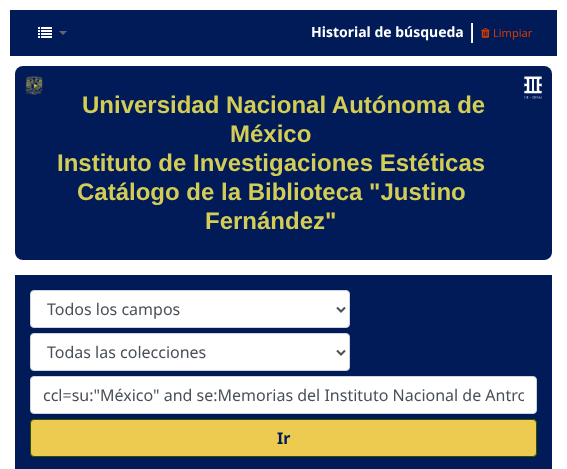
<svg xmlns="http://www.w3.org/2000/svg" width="567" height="469">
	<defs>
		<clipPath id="clip1"><rect x="43" y="384" width="481" height="22" /></clipPath>
	</defs>
	<rect width="100%" height="100%" fill="#FFFFFF" />
	<rect x="10" y="10" width="547" height="46" fill="#001B58" />
	<image x="38" y="27" width="14" height="11" href="assets/img1.png" />
	<path d="M59 31H67L63 35Z" fill="#666666" />
	<text x="311" y="37" font-family="Noto Sans" font-size="14" font-weight="700" fill="#FFFFFF">Historial de búsqueda</text>
	<rect x="472" y="23" width="1" height="20" fill="#FCF9FC" />
	<rect x="471" y="42" width="2" height="1" fill="#EEEEEE" />
	<rect x="471" y="23" width="1" height="20" fill="#EEEEEE" />
	<image x="481" y="28" width="9" height="10" href="assets/img2.png" />
	<text x="493" y="37" font-family="Noto Sans" font-size="11" fill="#D43C00">Limpiar</text>
	<rect x="15" y="66" width="537" height="194" rx="8" fill="#001B58" />
	<image x="25" y="76" width="18" height="19" href="assets/img3.png" />
	<image x="524" y="76" width="18" height="23" href="assets/img4.png" />
	<g font-family="Liberation Sans" font-size="24" font-weight="700" fill="#D3CC55">
		<text x="82" y="113">Universidad Nacional Autónoma de</text>
		<text x="230" y="142">México</text>
		<text x="57" y="171">Instituto de Investigaciones Estéticas</text>
		<text x="77" y="200">Catálogo de la Biblioteca "Justino</text>
		<text x="205" y="229">Fernández"</text>
	</g>
	<rect x="15" y="275" width="537" height="194" fill="#001B58" />
	<rect x="30.5" y="290.5" width="319" height="37" rx="3.5" fill="#FFFFFF" stroke="#CED4DA" />
	<path d="M337 307.5L341 311.5L345 307.5" fill="none" stroke="#495057" stroke-width="2" />
	<text x="47" y="315" font-family="Noto Sans" font-size="16" fill="#495057">Todos los campos</text>
	<rect x="30.5" y="333.5" width="319" height="37" rx="3.5" fill="#FFFFFF" stroke="#CED4DA" />
	<path d="M337 350.5L341 354.5L345 350.5" fill="none" stroke="#495057" stroke-width="2" />
	<text x="47" y="358" font-family="Noto Sans" font-size="16" fill="#495057">Todas las colecciones</text>
	<rect x="30.5" y="376.5" width="506" height="37" rx="3.5" fill="#FFFFFF" stroke="#CED4DA" />
	<g clip-path="url(#clip1)">
		<text x="43" y="401" font-family="Noto Sans" font-size="16" fill="#495057">ccl=su:"México" and se:Memorias del Instituto Nacional de Antro</text>
	</g>
	<rect x="30.5" y="419.5" width="506" height="37" rx="3.5" fill="#EDCA50" stroke="#335000" />
	<text x="277" y="444" font-family="Noto Sans" font-size="16" font-weight="700" fill="#001B58">Ir</text>
</svg>
